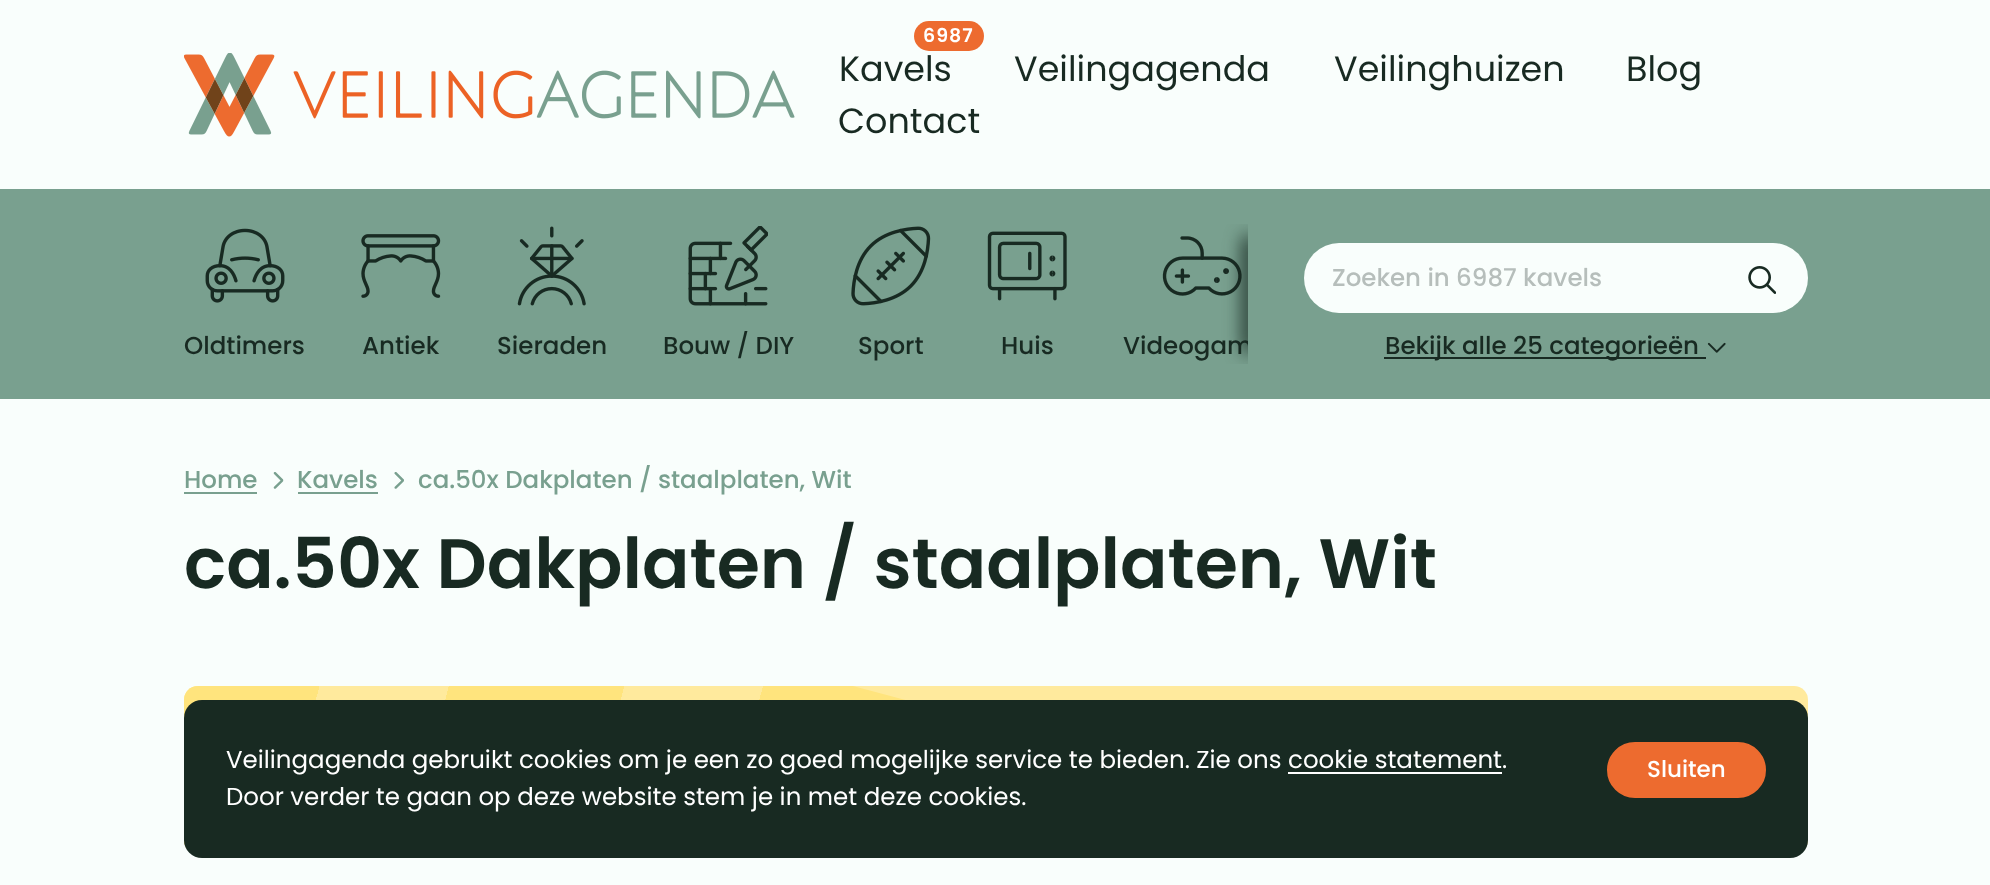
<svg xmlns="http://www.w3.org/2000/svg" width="1990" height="885">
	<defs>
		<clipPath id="clip1"><rect x="156" y="224" width="1092" height="140" /></clipPath>
		<clipPath id="clip2"><rect x="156" y="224" width="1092" height="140" /></clipPath>
		<linearGradient id="g1" gradientUnits="userSpaceOnUse" x1="148" y1="671" x2="1010" y2="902"><stop offset="0" stop-color="#FFE47D" /><stop offset="0.19" stop-color="#FFE47D" /><stop offset="0.19" stop-color="#FFE47D" stop-opacity="0" /><stop offset="0.33" stop-color="#FFE47D" stop-opacity="0" /><stop offset="0.33" stop-color="#FFE47D" /><stop offset="0.52" stop-color="#FFE47D" /><stop offset="0.52" stop-color="#FFE47D" stop-opacity="0" /><stop offset="0.67" stop-color="#FFE47D" stop-opacity="0" /><stop offset="0.67" stop-color="#FFE47D" /><stop offset="0.85" stop-color="#FFE47D" /><stop offset="0.85" stop-color="#FFE47D" stop-opacity="0" /><stop offset="1" stop-color="#000000" stop-opacity="0" /></linearGradient>
	</defs>
	<rect width="100%" height="100%" fill="#F9FEFC" />
	<image x="184" y="53" width="611" height="84" href="assets/img1.png" />
	<rect x="914" y="21" width="70" height="30" rx="15" fill="#ED6B2F" />
	<text x="923" y="42" font-family="Poppins" font-size="19" font-weight="600" letter-spacing="1" fill="#FFFFFF">6987</text>
	<g font-family="Poppins" font-size="35" fill="#182A22">
		<text x="839" y="81">Kavels</text>
		<text x="1014" y="81">Veilingagenda</text>
		<text x="1334" y="81">Veilinghuizen</text>
		<text x="1626" y="81">Blog</text>
		<text x="838" y="133">Contact</text>
	</g>
	<rect x="0" y="189" width="1990" height="210" fill="#79A08F" />
	<image x="205" y="228" width="80" height="75" href="assets/img2.png" />
	<text x="184" y="354" font-family="Poppins" font-size="24.5" font-weight="500" fill="#182A22">Oldtimers</text>
	<image x="361" y="234" width="80" height="64" href="assets/img3.png" />
	<text x="362" y="354" font-family="Poppins" font-size="24.5" font-weight="500" fill="#182A22">Antiek</text>
	<image x="517" y="226" width="69" height="80" href="assets/img4.png" />
	<text x="497" y="354" font-family="Poppins" font-size="24.5" font-weight="500" fill="#182A22">Sieraden</text>
	<image x="688" y="226" width="80" height="80" href="assets/img5.png" />
	<text x="663" y="354" font-family="Poppins" font-size="24.5" font-weight="500" fill="#182A22">Bouw / DIY</text>
	<image x="851" y="226" width="80" height="80" href="assets/img6.png" />
	<text x="858" y="354" font-family="Poppins" font-size="24.5" font-weight="500" fill="#182A22">Sport</text>
	<image x="987" y="231" width="80" height="70" href="assets/img7.png" />
	<text x="1001" y="354" font-family="Poppins" font-size="24.5" font-weight="500" fill="#182A22">Huis</text>
	<image x="1162" y="236" width="80" height="60" href="assets/img8.png" />
	<g clip-path="url(#clip1)">
		<text x="1123" y="354" font-family="Poppins" font-size="24.5" font-weight="500" fill="#182A22">Videogam</text>
	</g>
	<g clip-path="url(#clip2)">
		<rect x="1243" y="235" width="14" height="119" rx="7" fill="#182A22" filter="blur(9px)" />
	</g>
	<rect x="1304" y="243" width="504" height="70" rx="35" fill="#F9FEFC" />
	<text x="1332" y="286" font-family="Poppins" font-size="24.5" font-weight="500" fill="#B6BEBB">Zoeken in 6987 kavels</text>
	<image x="1748" y="266" width="28" height="28" href="assets/img9.png" />
	<rect x="1384" y="357" width="322" height="2" fill="#182A22" />
	<text x="1385" y="354" font-family="Poppins" font-size="24.5" font-weight="500" fill="#182A22">Bekijk alle 25 categorieën</text>
	<image x="1707" y="342" width="19" height="11" href="assets/img10.png" />
	<text x="184" y="488" font-family="Poppins" font-size="24.5" font-weight="500" fill="#79A08F">Home</text>
	<rect x="184" y="492" width="73" height="2" fill="#79A08F" />
	<image x="273" y="472" width="11" height="17" href="assets/img11.png" />
	<text x="297" y="488" font-family="Poppins" font-size="24.5" font-weight="500" fill="#79A08F">Kavels</text>
	<rect x="298" y="492" width="80" height="2" fill="#79A08F" />
	<image x="394" y="472" width="10" height="17" href="assets/img12.png" />
	<text x="418" y="488" font-family="Poppins" font-size="24.5" font-weight="500" fill="#79A08F">ca.50x Dakplaten / staalplaten, Wit</text>
	<text x="184" y="588" font-family="Poppins" font-size="70" font-weight="600" fill="#182A22">ca.50x Dakplaten / staalplaten, Wit</text>
	<rect x="184" y="686" width="1624" height="168" rx="14" fill="#FFEA9D" />
	<path d="M198 686H853L928 706L888 854H198C190 854 184 848 184 840V700C184 692 190 686 198 686Z" fill="url(#g1)" />
	<rect x="184" y="700" width="1624" height="158" rx="18" fill="#182A22" />
	<text x="226" y="768" font-family="Poppins" font-size="24.5" fill="#FFFFFF">Veilingagenda gebruikt cookies om je een zo goed mogelijke service te bieden. Zie ons cookie statement.</text>
	<rect x="1288" y="772" width="214" height="2" fill="#FFFFFF" />
	<text x="226" y="805" font-family="Poppins" font-size="24.5" fill="#FFFFFF">Door verder te gaan op deze website stem je in met deze cookies.</text>
	<rect x="1608" y="743" width="157" height="54" rx="27" fill="#ED6B2F" stroke="#ED6B2F" stroke-width="2" />
	<text x="1647" y="777" font-family="Poppins" font-size="23" font-weight="500" fill="#FFFFFF">Sluiten</text>
</svg>
